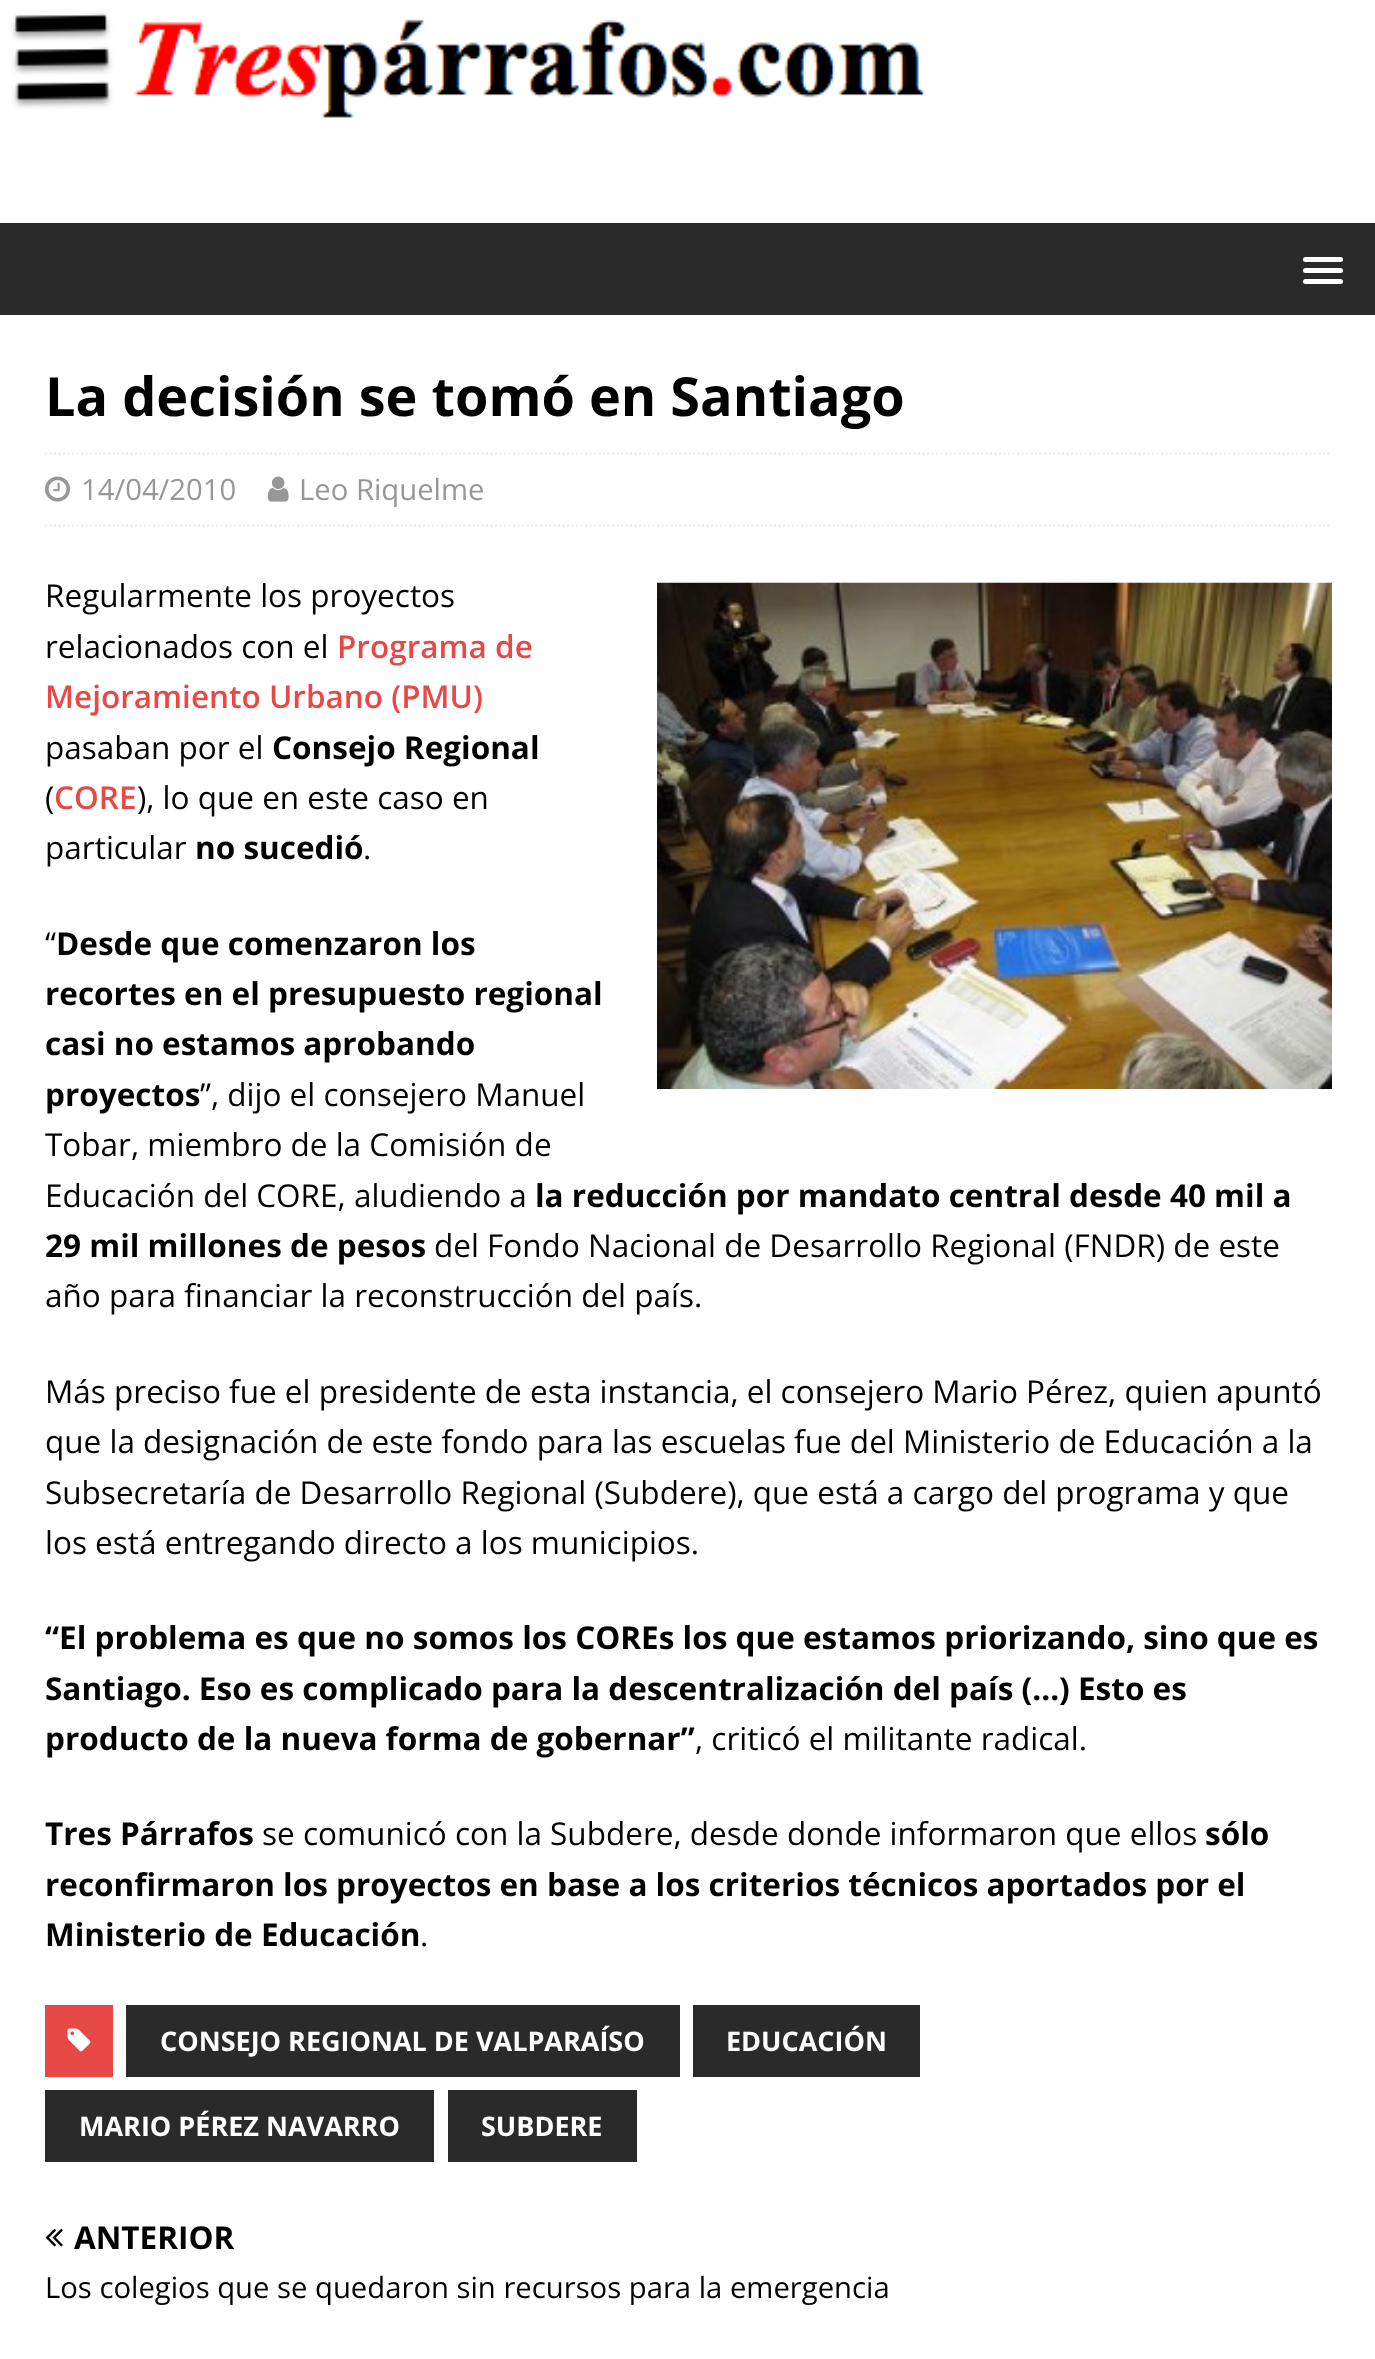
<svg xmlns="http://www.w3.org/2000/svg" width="1375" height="2359">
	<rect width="100%" height="100%" fill="#FFFFFF" />
	<image x="11" y="13" width="915" height="105" href="assets/img1.png" />
	<rect x="0" y="223" width="1375" height="92" fill="#2A2A2A" />
	<rect x="1303" y="257" width="40" height="5" rx="2.5" fill="#FFFFFF" />
	<rect x="1303" y="268" width="40" height="5" rx="2.5" fill="#FFFFFF" />
	<rect x="1303" y="279" width="40" height="5" rx="2.5" fill="#FFFFFF" />
	<text x="45" y="416" font-family="Open Sans" font-size="54" font-weight="700" fill="#000000">La decisión se tomó en Santiago</text>
	<path d="M45 453.5H1332" fill="none" stroke="#EBEBEB" stroke-width="2.2" stroke-dasharray="2.25 2.25" />
	<path d="M45 525.5H1332" fill="none" stroke="#EBEBEB" stroke-width="2.2" stroke-dasharray="2.25 2.25" />
	<image x="45" y="476" width="26" height="26" href="assets/img2.png" />
	<text x="81" y="500" font-family="Open Sans" font-size="29.25" fill="#979797">14/04/2010</text>
	<image x="267" y="476" width="22" height="26" href="assets/img3.png" />
	<text x="299" y="500" font-family="Open Sans" font-size="29.25" fill="#979797">Leo Riquelme</text>
	<text x="45" y="607" font-family="Open Sans" font-size="31.5" fill="#000000">Regularmente los proyectos</text>
	<image x="657" y="582" width="675" height="507" href="assets/img4.png" />
	<text x="45" y="658" font-family="Open Sans" font-size="31.5" fill="#000000">relacionados con el</text>
	<g font-family="Open Sans" font-size="31.5" font-weight="600" fill="#E64946">
		<text x="337" y="658">Programa de</text>
		<text x="45" y="708">Mejoramiento Urbano (PMU)</text>
	</g>
	<text x="45" y="759" font-family="Open Sans" font-size="31.5" fill="#000000">pasaban por el</text>
	<text x="272" y="759" font-family="Open Sans" font-size="31.5" font-weight="700" fill="#000000">Consejo Regional</text>
	<text x="45" y="809" font-family="Open Sans" font-size="31.5" fill="#000000">(</text>
	<text x="54" y="809" font-family="Open Sans" font-size="31.5" font-weight="600" fill="#E64946">CORE</text>
	<g font-family="Open Sans" font-size="31.5" fill="#000000">
		<text x="137" y="809">), lo que en este caso en</text>
		<text x="45" y="859">particular</text>
	</g>
	<text x="195" y="859" font-family="Open Sans" font-size="31.5" font-weight="700" fill="#000000">no sucedió</text>
	<g font-family="Open Sans" font-size="31.5" fill="#000000">
		<text x="363" y="859">.</text>
		<text x="45" y="955">“</text>
	</g>
	<g font-family="Open Sans" font-size="31.5" font-weight="700" fill="#000000">
		<text x="56" y="955">Desde que comenzaron los</text>
		<text x="45" y="1005">recortes en el presupuesto regional</text>
		<text x="45" y="1055">casi no estamos aprobando</text>
		<text x="45" y="1106">proyectos</text>
	</g>
	<g font-family="Open Sans" font-size="31.5" fill="#000000">
		<text x="200" y="1106">”, dijo el consejero Manuel</text>
		<text x="45" y="1156">Tobar, miembro de la Comisión de</text>
		<text x="45" y="1207">Educación del CORE, aludiendo a</text>
	</g>
	<g font-family="Open Sans" font-size="31.5" font-weight="700" fill="#000000">
		<text x="535" y="1207">la reducción por mandato central desde 40 mil a</text>
		<text x="45" y="1257">29 mil millones de pesos</text>
	</g>
	<g font-family="Open Sans" font-size="31.5" fill="#000000">
		<text x="434" y="1257">del Fondo Nacional de Desarrollo Regional (FNDR) de este</text>
		<text x="45" y="1307">año para financiar la reconstrucción del país.</text>
		<text x="45" y="1403">Más preciso fue el presidente de esta instancia, el consejero Mario Pérez, quien apuntó</text>
		<text x="45" y="1453">que la designación de este fondo para las escuelas fue del Ministerio de Educación a la</text>
		<text x="45" y="1504">Subsecretaría de Desarrollo Regional (Subdere), que está a cargo del programa y que</text>
		<text x="45" y="1554">los está entregando directo a los municipios.</text>
	</g>
	<g font-family="Open Sans" font-size="31.5" font-weight="700" fill="#000000">
		<text x="45" y="1649">“El problema es que no somos los COREs los que estamos priorizando, sino que es</text>
		<text x="45" y="1700">Santiago. Eso es complicado para la descentralización del país (…) Esto es</text>
		<text x="45" y="1750">producto de la nueva forma de gobernar”</text>
	</g>
	<text x="695" y="1750" font-family="Open Sans" font-size="31.5" fill="#000000">, criticó el militante radical.</text>
	<text x="45" y="1845" font-family="Open Sans" font-size="31.5" font-weight="700" fill="#000000">Tres Párrafos</text>
	<text x="262" y="1845" font-family="Open Sans" font-size="31.5" fill="#000000">se comunicó con la Subdere, desde donde informaron que ellos</text>
	<g font-family="Open Sans" font-size="31.5" font-weight="700" fill="#000000">
		<text x="1205" y="1845">sólo</text>
		<text x="45" y="1896">reconfirmaron los proyectos en base a los criterios técnicos aportados por el</text>
		<text x="45" y="1946">Ministerio de Educación</text>
	</g>
	<text x="420" y="1946" font-family="Open Sans" font-size="31.5" fill="#000000">.</text>
	<rect x="45" y="2005" width="68" height="72" fill="#E64946" />
	<image x="67" y="2028" width="24" height="24" href="assets/img5.png" />
	<rect x="126" y="2005" width="554" height="72" fill="#2A2A2A" />
	<text x="160" y="2051" font-family="Open Sans" font-size="27" font-weight="700" fill="#FFFFFF">CONSEJO REGIONAL DE VALPARAÍSO</text>
	<rect x="693" y="2005" width="227" height="72" fill="#2A2A2A" />
	<text x="726" y="2051" font-family="Open Sans" font-size="27" font-weight="700" fill="#FFFFFF">EDUCACIÓN</text>
	<rect x="45" y="2090" width="389" height="72" fill="#2A2A2A" />
	<text x="79" y="2136" font-family="Open Sans" font-size="27" font-weight="700" fill="#FFFFFF">MARIO PÉREZ NAVARRO</text>
	<rect x="448" y="2090" width="189" height="72" fill="#2A2A2A" />
	<text x="481" y="2136" font-family="Open Sans" font-size="27" font-weight="700" fill="#FFFFFF">SUBDERE</text>
	<image x="45" y="2228" width="18" height="19" href="assets/img6.png" />
	<text x="74" y="2249" font-family="Open Sans" font-size="31.5" font-weight="700" fill="#000000">ANTERIOR</text>
	<text x="45" y="2298" font-family="Open Sans" font-size="29.25" fill="#000000">Los colegios que se quedaron sin recursos para la emergencia</text>
</svg>
